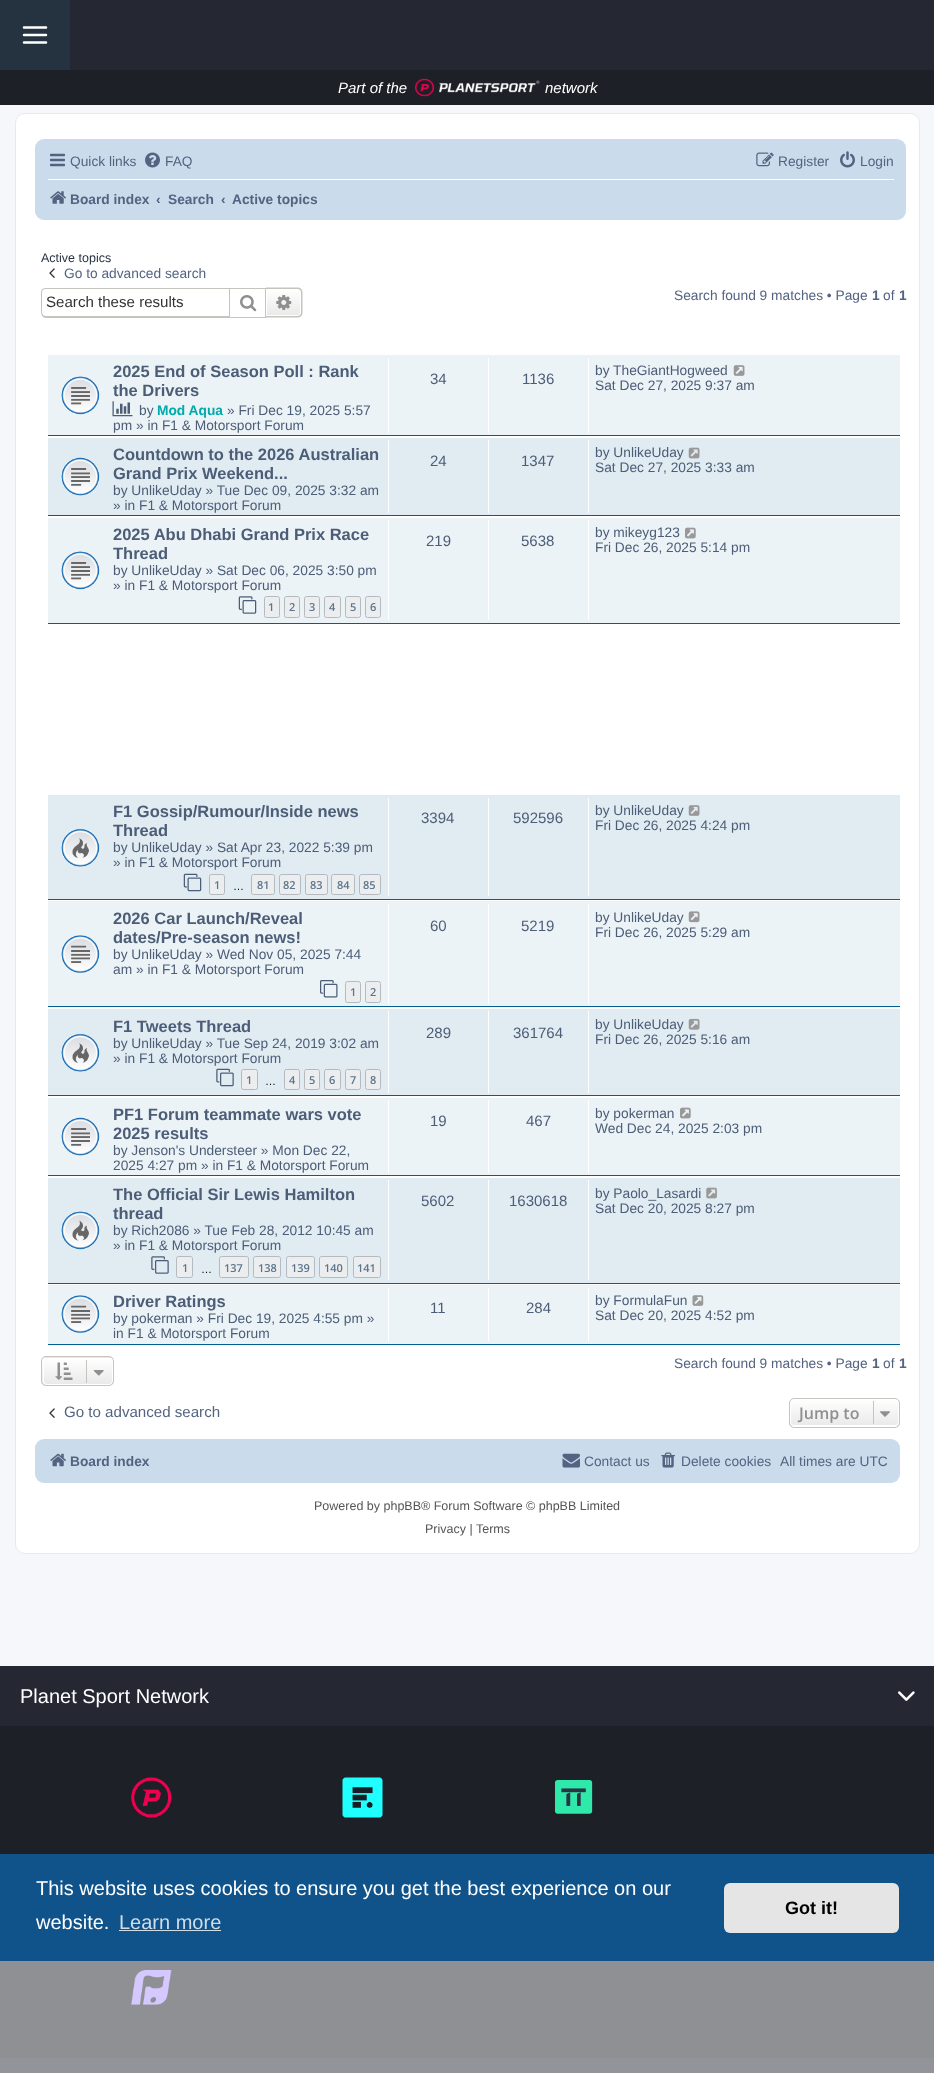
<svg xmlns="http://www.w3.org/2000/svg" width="934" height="2073">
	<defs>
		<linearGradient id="g1" gradientUnits="userSpaceOnUse" x1="284" y1="289" x2="284" y2="316"><stop offset="0" stop-color="#FFFFFF" /><stop offset="1" stop-color="#E9E9E9" /></linearGradient>
		<clipPath id="clip1"><rect x="41" y="1356" width="73" height="30" rx="5" /></clipPath>
		<linearGradient id="g2" gradientUnits="userSpaceOnUse" x1="78" y1="1330" x2="78" y2="1358"><stop offset="0" stop-color="#FFFFFF" /><stop offset="1" stop-color="#E9E9E9" /></linearGradient>
		<linearGradient id="g3" gradientUnits="userSpaceOnUse" x1="78" y1="1358" x2="78" y2="1385"><stop offset="0" stop-color="#FFFFFF" /><stop offset="1" stop-color="#E9E9E9" /></linearGradient>
		<clipPath id="clip2"><rect x="789" y="1398" width="111" height="30" rx="5" /></clipPath>
		<linearGradient id="g4" gradientUnits="userSpaceOnUse" x1="844" y1="1399" x2="844" y2="1426"><stop offset="0" stop-color="#FFFFFF" /><stop offset="1" stop-color="#E9E9E9" /></linearGradient>
	</defs>
	<rect width="100%" height="100%" fill="#F5F7FA" />
	<rect x="70" y="0" width="864" height="70" fill="#252833" />
	<rect x="0" y="0" width="70" height="70" fill="#253341" />
	<path d="M24 35H46M24 27.5H46M24 42.5H46" fill="none" stroke="#FFFFFF" stroke-width="2.5" stroke-linecap="round" stroke-linejoin="round" />
	<rect x="0" y="70" width="934" height="35" fill="#1E2028" />
	<text x="338" y="93" font-family="Liberation Sans" font-size="15" font-style="italic" fill="#FFFFFF">Part of the</text>
	<image x="415" y="78" width="125" height="19" href="assets/img1.png" />
	<text x="545" y="93" font-family="Liberation Sans" font-size="15" font-style="italic" fill="#FFFFFF">network</text>
	<rect x="15.5" y="113.5" width="904" height="1440" rx="9.5" fill="#FFFFFF" stroke="#E6E9ED" />
	<rect x="35" y="139" width="871" height="81" rx="9" fill="#CADCEB" />
	<image x="50" y="153" width="15" height="14" href="assets/img2.png" />
	<text x="70" y="166" font-family="Liberation Sans" font-size="13.75" fill="#536482">Quick links</text>
	<image x="145" y="152" width="15" height="16" href="assets/img3.png" />
	<text x="165" y="166" font-family="Liberation Sans" font-size="13.75" fill="#536482">FAQ</text>
	<image x="756" y="152" width="18" height="15" href="assets/img4.png" />
	<text x="778" y="166" font-family="Liberation Sans" font-size="13.75" fill="#536482">Register</text>
	<image x="840" y="151" width="15" height="17" href="assets/img5.png" />
	<text x="860" y="166" font-family="Liberation Sans" font-size="13.75" fill="#536482">Login</text>
	<rect x="48" y="179" width="846" height="1" fill="#FFFFFF" />
	<image x="50" y="191" width="16" height="13" href="assets/img6.png" />
	<g font-family="Liberation Sans" font-size="13.75" font-weight="700" fill="#536482">
		<text x="70" y="204">Board index</text>
		<text x="156" y="204">‹</text>
		<text x="168" y="204">Search</text>
		<text x="221" y="204">‹</text>
		<text x="232" y="204">Active topics</text>
	</g>
	<text x="41" y="262" font-family="Liberation Sans" font-size="12.5" fill="#28313F">Active topics</text>
	<image x="49" y="268" width="6" height="10" href="assets/img7.png" />
	<text x="64" y="278" font-family="Liberation Sans" font-size="13.75" fill="#536482">Go to advanced search</text>
	<path d="M46 288H229V318H46C43 318 41 315 41 312V292C41 290 43 288 46 288ZM46 289H229V316H46C44 316 42 315 42 312V292C42 290 44 289 46 289Z" fill="#C7C3BF" fill-rule="evenodd" />
	<text x="46" y="307" font-family="Liberation Sans" font-size="15.1" fill="#333333">Search these results</text>
	<rect x="229.5" y="288.5" width="36" height="29" fill="none" stroke="#C7C3BF" />
	<image x="240" y="295" width="17" height="17" href="assets/img8.png" />
	<path d="M266.5 289.5H297C299 289.5 300.5 291 300.5 293V312C300.5 314 299 315.5 297 315.5H266.5Z" fill="url(#g1)" stroke="#FFFFFF" />
	<path d="M266 287.5H297.5C300.5 287.5 302.5 289.5 302.5 292.5V312.5C302.5 315.5 300.5 317.5 297.5 317.5H266ZM266 289H297.5C299.5 289 301 290.5 301 292.5V312.5C301 314.5 299.5 316 297.5 316H266Z" fill="#C7C3BF" fill-rule="evenodd" />
	<image x="276" y="295" width="16" height="15" href="assets/img9.png" />
	<text x="674" y="300" font-family="Liberation Sans" font-size="13.75" fill="#536482">Search found 9 matches • Page</text>
	<text x="872" y="300" font-family="Liberation Sans" font-size="13.75" font-weight="700" fill="#536482">1</text>
	<text x="883" y="300" font-family="Liberation Sans" font-size="13.75" fill="#536482">of</text>
	<text x="899" y="300" font-family="Liberation Sans" font-size="13.75" font-weight="700" fill="#536482">1</text>
	<rect x="48" y="355" width="852" height="80" fill="#ECF3F7" />
	<rect x="48" y="435" width="852" height="1" fill="#00608F" />
	<image x="61" y="376" width="39" height="39" href="assets/img10.png" />
	<g font-family="Liberation Sans" font-size="16.5" font-weight="700" fill="#4C5D77">
		<text x="113" y="377">2025 End of Season Poll : Rank</text>
		<text x="113" y="396">the Drivers</text>
	</g>
	<image x="112" y="401" width="21" height="16" href="assets/img11.png" />
	<text x="139" y="415" font-family="Liberation Sans" font-size="13.75" fill="#4C5D77">by</text>
	<text x="157" y="415" font-family="Liberation Sans" font-size="13.75" font-weight="700" fill="#00AAAA">Mod Aqua</text>
	<g font-family="Liberation Sans" font-size="13.75" fill="#4C5D77">
		<text x="227" y="415">» Fri Dec 19, 2025 5:57</text>
		<text x="113" y="430">pm » in F1 &amp; Motorsport Forum</text>
	</g>
	<rect x="388" y="358" width="1" height="75" fill="#FFFFFF" />
	<text x="430" y="384" font-family="Liberation Sans" font-size="15" fill="#4C5D77">34</text>
	<rect x="488" y="358" width="1" height="75" fill="#FFFFFF" />
	<text x="522" y="384" font-family="Liberation Sans" font-size="15" fill="#4C5D77">1136</text>
	<rect x="588" y="358" width="1" height="75" fill="#FFFFFF" />
	<text x="595" y="375" font-family="Liberation Sans" font-size="13.75" fill="#4C5D77">by TheGiantHogweed</text>
	<image x="733" y="365" width="12" height="11" href="assets/img12.png" />
	<text x="595" y="390" font-family="Liberation Sans" font-size="13.75" fill="#4C5D77">Sat Dec 27, 2025 9:37 am</text>
	<rect x="48" y="438" width="852" height="77" fill="#E1EBF2" />
	<rect x="48" y="515" width="852" height="1" fill="#00608F" />
	<image x="61" y="457" width="39" height="39" href="assets/img13.png" />
	<g font-family="Liberation Sans" font-size="16.5" font-weight="700" fill="#4C5D77">
		<text x="113" y="460">Countdown to the 2026 Australian</text>
		<text x="113" y="479">Grand Prix Weekend...</text>
	</g>
	<g font-family="Liberation Sans" font-size="13.75" fill="#4C5D77">
		<text x="113" y="495">by UnlikeUday » Tue Dec 09, 2025 3:32 am</text>
		<text x="113" y="510">» in F1 &amp; Motorsport Forum</text>
	</g>
	<rect x="388" y="440" width="1" height="73" fill="#FFFFFF" />
	<text x="430" y="466" font-family="Liberation Sans" font-size="15" fill="#4C5D77">24</text>
	<rect x="488" y="440" width="1" height="73" fill="#FFFFFF" />
	<text x="521" y="466" font-family="Liberation Sans" font-size="15" fill="#4C5D77">1347</text>
	<rect x="588" y="440" width="1" height="73" fill="#FFFFFF" />
	<text x="595" y="457" font-family="Liberation Sans" font-size="13.75" fill="#4C5D77">by UnlikeUday</text>
	<image x="688" y="447" width="12" height="12" href="assets/img14.png" />
	<text x="595" y="472" font-family="Liberation Sans" font-size="13.75" fill="#4C5D77">Sat Dec 27, 2025 3:33 am</text>
	<rect x="48" y="518" width="852" height="105" fill="#ECF3F7" />
	<rect x="48" y="623" width="852" height="1" fill="#00608F" />
	<image x="61" y="551" width="39" height="39" href="assets/img10.png" />
	<g font-family="Liberation Sans" font-size="16.5" font-weight="700" fill="#4C5D77">
		<text x="113" y="540">2025 Abu Dhabi Grand Prix Race</text>
		<text x="113" y="559">Thread</text>
	</g>
	<g font-family="Liberation Sans" font-size="13.75" fill="#4C5D77">
		<text x="113" y="575">by UnlikeUday » Sat Dec 06, 2025 3:50 pm</text>
		<text x="113" y="590">» in F1 &amp; Motorsport Forum</text>
	</g>
	<image x="238" y="596" width="19" height="18" href="assets/img15.png" />
	<rect x="264.5" y="596.5" width="15" height="21" rx="2" fill="#ECEDEE" stroke="#B4BAC0" />
	<text x="268" y="611" font-family="Open Sans" font-size="11" font-weight="600" fill="#5C758C">1</text>
	<rect x="284.5" y="596.5" width="15" height="21" rx="2" fill="#ECEDEE" stroke="#B4BAC0" />
	<text x="289" y="611" font-family="Open Sans" font-size="11" font-weight="600" fill="#5C758C">2</text>
	<rect x="304.5" y="596.5" width="15" height="21" rx="2" fill="#ECEDEE" stroke="#B4BAC0" />
	<text x="309" y="611" font-family="Open Sans" font-size="11" font-weight="600" fill="#5C758C">3</text>
	<rect x="324.5" y="596.5" width="16" height="21" rx="2" fill="#ECEDEE" stroke="#B4BAC0" />
	<text x="329" y="611" font-family="Open Sans" font-size="11" font-weight="600" fill="#5C758C">4</text>
	<rect x="345.5" y="596.5" width="15" height="21" rx="2" fill="#ECEDEE" stroke="#B4BAC0" />
	<text x="350" y="611" font-family="Open Sans" font-size="11" font-weight="600" fill="#5C758C">5</text>
	<rect x="365.5" y="596.5" width="15" height="21" rx="2" fill="#ECEDEE" stroke="#B4BAC0" />
	<text x="370" y="611" font-family="Open Sans" font-size="11" font-weight="600" fill="#5C758C">6</text>
	<rect x="388" y="520" width="1" height="100" fill="#FFFFFF" />
	<text x="426" y="546" font-family="Liberation Sans" font-size="15" fill="#4C5D77">219</text>
	<rect x="488" y="520" width="1" height="100" fill="#FFFFFF" />
	<text x="521" y="546" font-family="Liberation Sans" font-size="15" fill="#4C5D77">5638</text>
	<rect x="588" y="520" width="1" height="100" fill="#FFFFFF" />
	<text x="595" y="537" font-family="Liberation Sans" font-size="13.75" fill="#4C5D77">by mikeyg123</text>
	<image x="685" y="527" width="11" height="12" href="assets/img16.png" />
	<text x="595" y="552" font-family="Liberation Sans" font-size="13.75" fill="#4C5D77">Fri Dec 26, 2025 5:14 pm</text>
	<rect x="48" y="795" width="852" height="104" fill="#E1EBF2" />
	<rect x="48" y="899" width="852" height="1" fill="#00608F" />
	<image x="61" y="828" width="39" height="39" href="assets/img17.png" />
	<g font-family="Liberation Sans" font-size="16.5" font-weight="700" fill="#4C5D77">
		<text x="113" y="817">F1 Gossip/Rumour/Inside news</text>
		<text x="113" y="836">Thread</text>
	</g>
	<g font-family="Liberation Sans" font-size="13.75" fill="#4C5D77">
		<text x="113" y="852">by UnlikeUday » Sat Apr 23, 2022 5:39 pm</text>
		<text x="113" y="867">» in F1 &amp; Motorsport Forum</text>
	</g>
	<image x="183" y="873" width="19" height="19" href="assets/img18.png" />
	<rect x="209.5" y="874.5" width="15" height="20" rx="2" fill="#ECEDEE" stroke="#B4BAC0" />
	<text x="214" y="889" font-family="Open Sans" font-size="11" font-weight="600" fill="#5C758C">1</text>
	<text x="233" y="890" font-family="Liberation Sans" font-size="11" fill="#000000">…</text>
	<rect x="251.5" y="874.5" width="23" height="20" rx="2" fill="#ECEDEE" stroke="#B4BAC0" />
	<text x="257" y="889" font-family="Open Sans" font-size="11" font-weight="600" fill="#5C758C">81</text>
	<rect x="279.5" y="874.5" width="21" height="20" rx="2" fill="#ECEDEE" stroke="#B4BAC0" />
	<text x="283" y="889" font-family="Open Sans" font-size="11" font-weight="600" fill="#5C758C">82</text>
	<rect x="305.5" y="874.5" width="22" height="20" rx="2" fill="#ECEDEE" stroke="#B4BAC0" />
	<text x="310" y="889" font-family="Open Sans" font-size="11" font-weight="600" fill="#5C758C">83</text>
	<rect x="331.5" y="874.5" width="23" height="20" rx="2" fill="#ECEDEE" stroke="#B4BAC0" />
	<text x="337" y="889" font-family="Open Sans" font-size="11" font-weight="600" fill="#5C758C">84</text>
	<rect x="359.5" y="874.5" width="21" height="20" rx="2" fill="#ECEDEE" stroke="#B4BAC0" />
	<text x="363" y="889" font-family="Open Sans" font-size="11" font-weight="600" fill="#5C758C">85</text>
	<rect x="388" y="798" width="1" height="98" fill="#FFFFFF" />
	<text x="421" y="823" font-family="Liberation Sans" font-size="15" fill="#4C5D77">3394</text>
	<rect x="488" y="798" width="1" height="98" fill="#FFFFFF" />
	<text x="513" y="823" font-family="Liberation Sans" font-size="15" fill="#4C5D77">592596</text>
	<rect x="588" y="798" width="1" height="98" fill="#FFFFFF" />
	<text x="595" y="815" font-family="Liberation Sans" font-size="13.75" fill="#4C5D77">by UnlikeUday</text>
	<image x="688" y="805" width="12" height="11" href="assets/img19.png" />
	<text x="595" y="830" font-family="Liberation Sans" font-size="13.75" fill="#4C5D77">Fri Dec 26, 2025 4:24 pm</text>
	<rect x="48" y="901" width="852" height="105" fill="#ECF3F7" />
	<rect x="48" y="1006" width="852" height="1" fill="#00608F" />
	<image x="61" y="935" width="39" height="38" href="assets/img20.png" />
	<g font-family="Liberation Sans" font-size="16.5" font-weight="700" fill="#4C5D77">
		<text x="113" y="924">2026 Car Launch/Reveal</text>
		<text x="113" y="943">dates/Pre-season news!</text>
	</g>
	<g font-family="Liberation Sans" font-size="13.75" fill="#4C5D77">
		<text x="113" y="959">by UnlikeUday » Wed Nov 05, 2025 7:44</text>
		<text x="113" y="974">am » in F1 &amp; Motorsport Forum</text>
	</g>
	<image x="320" y="980" width="18" height="18" href="assets/img21.png" />
	<rect x="345.5" y="981.5" width="15" height="21" rx="2" fill="#ECEDEE" stroke="#B4BAC0" />
	<text x="350" y="996" font-family="Open Sans" font-size="11" font-weight="600" fill="#5C758C">1</text>
	<rect x="365.5" y="981.5" width="15" height="21" rx="2" fill="#ECEDEE" stroke="#B4BAC0" />
	<text x="370" y="996" font-family="Open Sans" font-size="11" font-weight="600" fill="#5C758C">2</text>
	<rect x="388" y="904" width="1" height="100" fill="#FFFFFF" />
	<text x="430" y="931" font-family="Liberation Sans" font-size="15" fill="#4C5D77">60</text>
	<rect x="488" y="904" width="1" height="100" fill="#FFFFFF" />
	<text x="521" y="931" font-family="Liberation Sans" font-size="15" fill="#4C5D77">5219</text>
	<rect x="588" y="904" width="1" height="100" fill="#FFFFFF" />
	<text x="595" y="922" font-family="Liberation Sans" font-size="13.75" fill="#4C5D77">by UnlikeUday</text>
	<image x="688" y="911" width="12" height="12" href="assets/img22.png" />
	<text x="595" y="937" font-family="Liberation Sans" font-size="13.75" fill="#4C5D77">Fri Dec 26, 2025 5:29 am</text>
	<rect x="48" y="1009" width="852" height="86" fill="#E1EBF2" />
	<rect x="48" y="1095" width="852" height="1" fill="#00608F" />
	<image x="61" y="1033" width="39" height="39" href="assets/img17.png" />
	<text x="113" y="1032" font-family="Liberation Sans" font-size="16.5" font-weight="700" fill="#4C5D77">F1 Tweets Thread</text>
	<g font-family="Liberation Sans" font-size="13.75" fill="#4C5D77">
		<text x="113" y="1048">by UnlikeUday » Tue Sep 24, 2019 3:02 am</text>
		<text x="113" y="1063">» in F1 &amp; Motorsport Forum</text>
	</g>
	<image x="216" y="1068" width="18" height="19" href="assets/img23.png" />
	<rect x="241.5" y="1069.5" width="16" height="20" rx="2" fill="#ECEDEE" stroke="#B4BAC0" />
	<text x="246" y="1084" font-family="Open Sans" font-size="11" font-weight="600" fill="#5C758C">1</text>
	<text x="265" y="1085" font-family="Liberation Sans" font-size="11" fill="#000000">…</text>
	<rect x="284.5" y="1069.5" width="15" height="20" rx="2" fill="#ECEDEE" stroke="#B4BAC0" />
	<text x="289" y="1084" font-family="Open Sans" font-size="11" font-weight="600" fill="#5C758C">4</text>
	<rect x="304.5" y="1069.5" width="15" height="20" rx="2" fill="#ECEDEE" stroke="#B4BAC0" />
	<text x="309" y="1084" font-family="Open Sans" font-size="11" font-weight="600" fill="#5C758C">5</text>
	<rect x="324.5" y="1069.5" width="16" height="20" rx="2" fill="#ECEDEE" stroke="#B4BAC0" />
	<text x="329" y="1084" font-family="Open Sans" font-size="11" font-weight="600" fill="#5C758C">6</text>
	<rect x="345.5" y="1069.5" width="15" height="20" rx="2" fill="#ECEDEE" stroke="#B4BAC0" />
	<text x="350" y="1084" font-family="Open Sans" font-size="11" font-weight="600" fill="#5C758C">7</text>
	<rect x="365.5" y="1069.5" width="15" height="20" rx="2" fill="#ECEDEE" stroke="#B4BAC0" />
	<text x="370" y="1084" font-family="Open Sans" font-size="11" font-weight="600" fill="#5C758C">8</text>
	<rect x="388" y="1011" width="1" height="82" fill="#FFFFFF" />
	<text x="426" y="1038" font-family="Liberation Sans" font-size="15" fill="#4C5D77">289</text>
	<rect x="488" y="1011" width="1" height="82" fill="#FFFFFF" />
	<text x="513" y="1038" font-family="Liberation Sans" font-size="15" fill="#4C5D77">361764</text>
	<rect x="588" y="1011" width="1" height="82" fill="#FFFFFF" />
	<text x="595" y="1029" font-family="Liberation Sans" font-size="13.75" fill="#4C5D77">by UnlikeUday</text>
	<image x="688" y="1018" width="12" height="12" href="assets/img24.png" />
	<text x="595" y="1044" font-family="Liberation Sans" font-size="13.75" fill="#4C5D77">Fri Dec 26, 2025 5:16 am</text>
	<rect x="48" y="1098" width="852" height="77" fill="#ECF3F7" />
	<rect x="48" y="1175" width="852" height="1" fill="#00608F" />
	<image x="61" y="1117" width="39" height="39" href="assets/img25.png" />
	<g font-family="Liberation Sans" font-size="16.5" font-weight="700" fill="#4C5D77">
		<text x="113" y="1120">PF1 Forum teammate wars vote</text>
		<text x="113" y="1139">2025 results</text>
	</g>
	<g font-family="Liberation Sans" font-size="13.75" fill="#4C5D77">
		<text x="113" y="1155">by Jenson's Understeer » Mon Dec 22,</text>
		<text x="113" y="1170">2025 4:27 pm » in F1 &amp; Motorsport Forum</text>
	</g>
	<rect x="388" y="1100" width="1" height="73" fill="#FFFFFF" />
	<text x="430" y="1126" font-family="Liberation Sans" font-size="15" fill="#4C5D77">19</text>
	<rect x="488" y="1100" width="1" height="73" fill="#FFFFFF" />
	<text x="526" y="1126" font-family="Liberation Sans" font-size="15" fill="#4C5D77">467</text>
	<rect x="588" y="1100" width="1" height="73" fill="#FFFFFF" />
	<text x="595" y="1118" font-family="Liberation Sans" font-size="13.75" fill="#4C5D77">by pokerman</text>
	<image x="680" y="1107" width="11" height="12" href="assets/img16.png" />
	<text x="595" y="1133" font-family="Liberation Sans" font-size="13.75" fill="#4C5D77">Wed Dec 24, 2025 2:03 pm</text>
	<rect x="48" y="1178" width="852" height="105" fill="#E1EBF2" />
	<rect x="48" y="1283" width="852" height="1" fill="#00608F" />
	<image x="61" y="1211" width="39" height="39" href="assets/img26.png" />
	<g font-family="Liberation Sans" font-size="16.5" font-weight="700" fill="#4C5D77">
		<text x="113" y="1200">The Official Sir Lewis Hamilton</text>
		<text x="113" y="1219">thread</text>
	</g>
	<g font-family="Liberation Sans" font-size="13.75" fill="#4C5D77">
		<text x="113" y="1235">by Rich2086 » Tue Feb 28, 2012 10:45 am</text>
		<text x="113" y="1250">» in F1 &amp; Motorsport Forum</text>
	</g>
	<image x="151" y="1256" width="18" height="18" href="assets/img27.png" />
	<rect x="176.5" y="1256.5" width="16" height="21" rx="2" fill="#ECEDEE" stroke="#B4BAC0" />
	<text x="182" y="1272" font-family="Open Sans" font-size="11" font-weight="600" fill="#5C758C">1</text>
	<text x="201" y="1273" font-family="Liberation Sans" font-size="11" fill="#000000">…</text>
	<rect x="219.5" y="1256.5" width="29" height="21" rx="2" fill="#ECEDEE" stroke="#B4BAC0" />
	<text x="224" y="1272" font-family="Open Sans" font-size="11" font-weight="600" fill="#5C758C">137</text>
	<rect x="253.5" y="1256.5" width="27" height="21" rx="2" fill="#ECEDEE" stroke="#B4BAC0" />
	<text x="258" y="1272" font-family="Open Sans" font-size="11" font-weight="600" fill="#5C758C">138</text>
	<rect x="286.5" y="1256.5" width="28" height="21" rx="2" fill="#ECEDEE" stroke="#B4BAC0" />
	<text x="291" y="1272" font-family="Open Sans" font-size="11" font-weight="600" fill="#5C758C">139</text>
	<rect x="319.5" y="1256.5" width="28" height="21" rx="2" fill="#ECEDEE" stroke="#B4BAC0" />
	<text x="324" y="1272" font-family="Open Sans" font-size="11" font-weight="600" fill="#5C758C">140</text>
	<rect x="353.5" y="1256.5" width="27" height="21" rx="2" fill="#ECEDEE" stroke="#B4BAC0" />
	<text x="357" y="1272" font-family="Open Sans" font-size="11" font-weight="600" fill="#5C758C">141</text>
	<rect x="388" y="1180" width="1" height="100" fill="#FFFFFF" />
	<text x="421" y="1206" font-family="Liberation Sans" font-size="15" fill="#4C5D77">5602</text>
	<rect x="488" y="1180" width="1" height="100" fill="#FFFFFF" />
	<text x="509" y="1206" font-family="Liberation Sans" font-size="15" fill="#4C5D77">1630618</text>
	<rect x="588" y="1180" width="1" height="100" fill="#FFFFFF" />
	<text x="595" y="1198" font-family="Liberation Sans" font-size="13.75" fill="#4C5D77">by Paolo_Lasardi</text>
	<image x="706" y="1187" width="11" height="12" href="assets/img28.png" />
	<text x="595" y="1213" font-family="Liberation Sans" font-size="13.75" fill="#4C5D77">Sat Dec 20, 2025 8:27 pm</text>
	<rect x="48" y="1285" width="852" height="59" fill="#ECF3F7" />
	<rect x="48" y="1344" width="852" height="1" fill="#00608F" />
	<image x="61" y="1295" width="39" height="38" href="assets/img20.png" />
	<text x="113" y="1307" font-family="Liberation Sans" font-size="16.5" font-weight="700" fill="#4C5D77">Driver Ratings</text>
	<g font-family="Liberation Sans" font-size="13.75" fill="#4C5D77">
		<text x="113" y="1323">by pokerman » Fri Dec 19, 2025 4:55 pm »</text>
		<text x="113" y="1338">in F1 &amp; Motorsport Forum</text>
	</g>
	<rect x="388" y="1288" width="1" height="53" fill="#FFFFFF" />
	<text x="430" y="1313" font-family="Liberation Sans" font-size="15" fill="#4C5D77">11</text>
	<rect x="488" y="1288" width="1" height="53" fill="#FFFFFF" />
	<text x="526" y="1313" font-family="Liberation Sans" font-size="15" fill="#4C5D77">284</text>
	<rect x="588" y="1288" width="1" height="53" fill="#FFFFFF" />
	<text x="595" y="1305" font-family="Liberation Sans" font-size="13.75" fill="#4C5D77">by FormulaFun</text>
	<image x="692" y="1295" width="12" height="11" href="assets/img29.png" />
	<text x="595" y="1320" font-family="Liberation Sans" font-size="13.75" fill="#4C5D77">Sat Dec 20, 2025 4:52 pm</text>
	<g clip-path="url(#clip1)">
		<rect x="41" y="1356" width="73" height="2" fill="url(#g2)" />
		<rect x="41" y="1358" width="73" height="27" fill="url(#g3)" />
	</g>
	<rect x="43.5" y="1358.5" width="69" height="26" rx="3.5" fill="none" stroke="#FFFFFF" />
	<rect x="41.5" y="1356.5" width="72" height="29" rx="4.5" fill="none" stroke="#C7C3BF" />
	<image x="55" y="1362" width="18" height="18" href="assets/img30.png" />
	<rect x="86" y="1360" width="1" height="23" fill="#C7C3BF" />
	<image x="93" y="1370" width="11" height="6" href="assets/img31.png" />
	<text x="674" y="1368" font-family="Liberation Sans" font-size="13.75" fill="#536482">Search found 9 matches • Page</text>
	<text x="872" y="1368" font-family="Liberation Sans" font-size="13.75" font-weight="700" fill="#536482">1</text>
	<text x="883" y="1368" font-family="Liberation Sans" font-size="13.75" fill="#536482">of</text>
	<text x="899" y="1368" font-family="Liberation Sans" font-size="13.75" font-weight="700" fill="#536482">1</text>
	<image x="49" y="1408" width="6" height="10" href="assets/img7.png" />
	<text x="64" y="1417" font-family="Liberation Sans" font-size="15.1" fill="#536482">Go to advanced search</text>
	<g clip-path="url(#clip2)">
		<rect x="789" y="1399" width="111" height="27" fill="url(#g4)" />
	</g>
	<rect x="790.5" y="1399.5" width="108" height="26" rx="3.5" fill="none" stroke="#FFFFFF" />
	<rect x="789.5" y="1398.5" width="110" height="29" rx="4.5" fill="none" stroke="#C7C3BF" />
	<text x="799" y="1419" font-family="Open Sans" font-size="16" font-weight="600" fill="#8F8F8F">Jump to</text>
	<rect x="873" y="1401" width="1" height="23" fill="#C7C3BF" />
	<image x="880" y="1411" width="10" height="6" href="assets/img32.png" />
	<rect x="35" y="1439" width="865" height="44" rx="9" fill="#CADCEB" />
	<image x="50" y="1453" width="16" height="14" href="assets/img33.png" />
	<text x="70" y="1466" font-family="Liberation Sans" font-size="13.75" font-weight="700" fill="#536482">Board index</text>
	<image x="562" y="1453" width="18" height="15" href="assets/img34.png" />
	<text x="584" y="1466" font-family="Liberation Sans" font-size="13.75" fill="#536482">Contact us</text>
	<image x="661" y="1452" width="14" height="16" href="assets/img35.png" />
	<g font-family="Liberation Sans" font-size="13.75" fill="#536482">
		<text x="681" y="1466">Delete cookies</text>
		<text x="780" y="1466">All times are UTC</text>
	</g>
	<g font-family="Liberation Sans" font-size="12.5" fill="#555555">
		<text x="314" y="1510">Powered by phpBB® Forum Software © phpBB Limited</text>
		<text x="425" y="1533">Privacy | Terms</text>
	</g>
	<rect x="0" y="1666" width="934" height="60" fill="#252833" />
	<rect x="0" y="2058" width="934" height="15" fill="#929499" />
	<text x="20" y="1703" font-family="Liberation Sans" font-size="20" fill="#FFFFFF">Planet Sport Network</text>
	<image x="898" y="1691" width="17" height="10" href="assets/img36.png" />
	<rect x="0" y="1726" width="934" height="128" fill="#1E2028" />
	<rect x="0" y="1961" width="934" height="97" fill="#8F9094" />
	<image x="131" y="1777" width="41" height="41" href="assets/img37.png" />
	<image x="342" y="1777" width="41" height="41" href="assets/img38.png" />
	<image x="555" y="1780" width="38" height="34" href="assets/img39.png" />
	<image x="131" y="1970" width="41" height="35" href="assets/img40.png" />
	<rect x="0" y="1854" width="934" height="107" fill="#0F538A" />
	<g font-family="Liberation Sans" font-size="20" fill="#FFFFFF">
		<text x="36" y="1895">This website uses cookies to ensure you get the best experience on our</text>
		<text x="36" y="1929">website.</text>
	</g>
	<text x="119" y="1929" font-family="Liberation Sans" font-size="20" fill="#CFDDE8">Learn more</text>
	<rect x="119" y="1930" width="102" height="1" fill="#CFDDE8" />
	<rect x="724" y="1883" width="175" height="50" rx="6" fill="#E5E5E5" />
	<text x="785" y="1914" font-family="Liberation Sans" font-size="18" font-weight="700" fill="#000000">Got it!</text>
</svg>
